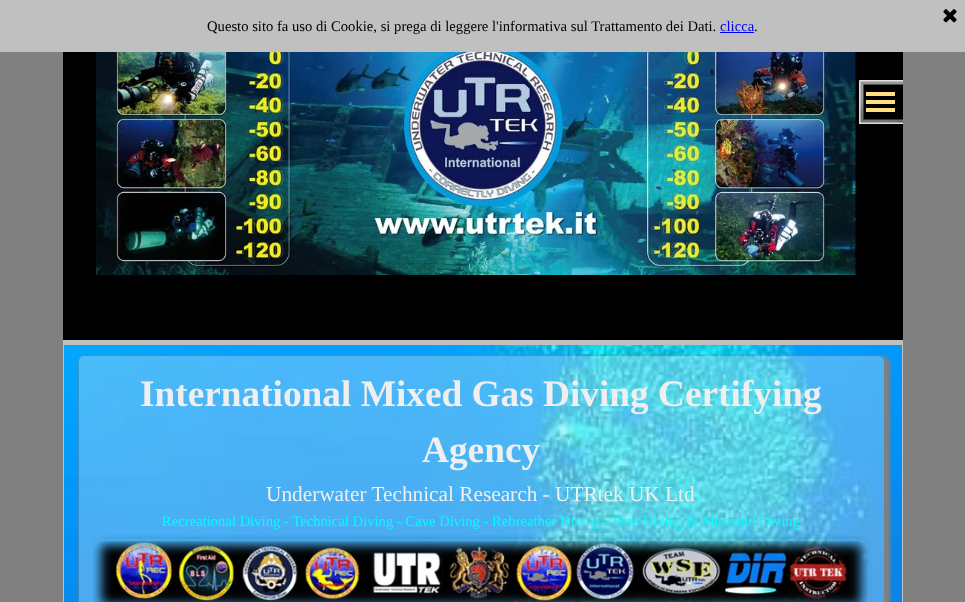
<svg xmlns="http://www.w3.org/2000/svg" width="965" height="602">
	<defs>
		<clipPath id="clip1"><path d="M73 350H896V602H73ZM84 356H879C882 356 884 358 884 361V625C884 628 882 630 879 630H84C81 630 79 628 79 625V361C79 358 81 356 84 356Z" clip-rule="evenodd" /></clipPath>
	</defs>
	<rect width="100%" height="100%" fill="#808080" />
	<rect x="0" y="0" width="965" height="52" fill="#C0C0C0" />
	<image x="943" y="9" width="14" height="14" href="assets/img1.png" />
	<text x="207" y="31" font-family="Liberation Serif" font-size="14.65" fill="#000000">Questo sito fa uso di Cookie, si prega di leggere l'informativa sul Trattamento dei Dati.</text>
	<text x="720" y="31" font-family="Liberation Serif" font-size="14.65" fill="#0000FF">clicca</text>
	<rect x="720" y="32" width="34" height="1" fill="#0000FF" />
	<text x="754" y="31" font-family="Liberation Serif" font-size="14.65" fill="#000000">.</text>
	<rect x="63" y="52" width="840" height="288" fill="#000000" />
	<image x="96" y="52" width="760" height="223" href="assets/img2.png" />
	<image x="859" y="80" width="44" height="44" href="assets/img3.png" />
	<rect x="866" y="92" width="29" height="4" fill="#FFDF80" />
	<rect x="866" y="100" width="29" height="4" fill="#FFDF80" />
	<rect x="866" y="108" width="29" height="4" fill="#FFDF80" />
	<rect x="63" y="340" width="840" height="262" fill="#C0C0C0" />
	<image x="64" y="345" width="838" height="257" href="assets/img4.png" />
	<g clip-path="url(#clip1)">
		<rect x="79" y="356" width="811" height="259" rx="8" fill="#808080" filter="blur(1.5px)" />
	</g>
	<g font-family="Liberation Serif" font-size="37.3" font-weight="700" fill="#EFEFEF">
		<text x="140" y="406">International Mixed Gas Diving Certifying</text>
		<text x="422" y="462">Agency</text>
	</g>
	<text x="266" y="501" font-family="Liberation Serif" font-size="21.3" fill="#EFEFEF">Underwater Technical Research - UTRtek UK Ltd</text>
	<text x="162" y="526" font-family="Liberation Serif" font-size="14.65" fill="#00FFFF">Recreational Diving - Technical Diving - Cave Diving - Rebreather Diving - Free Diving &amp; Mermaid Diving</text>
	<image x="92" y="535" width="779" height="67" href="assets/img5.png" />
</svg>
